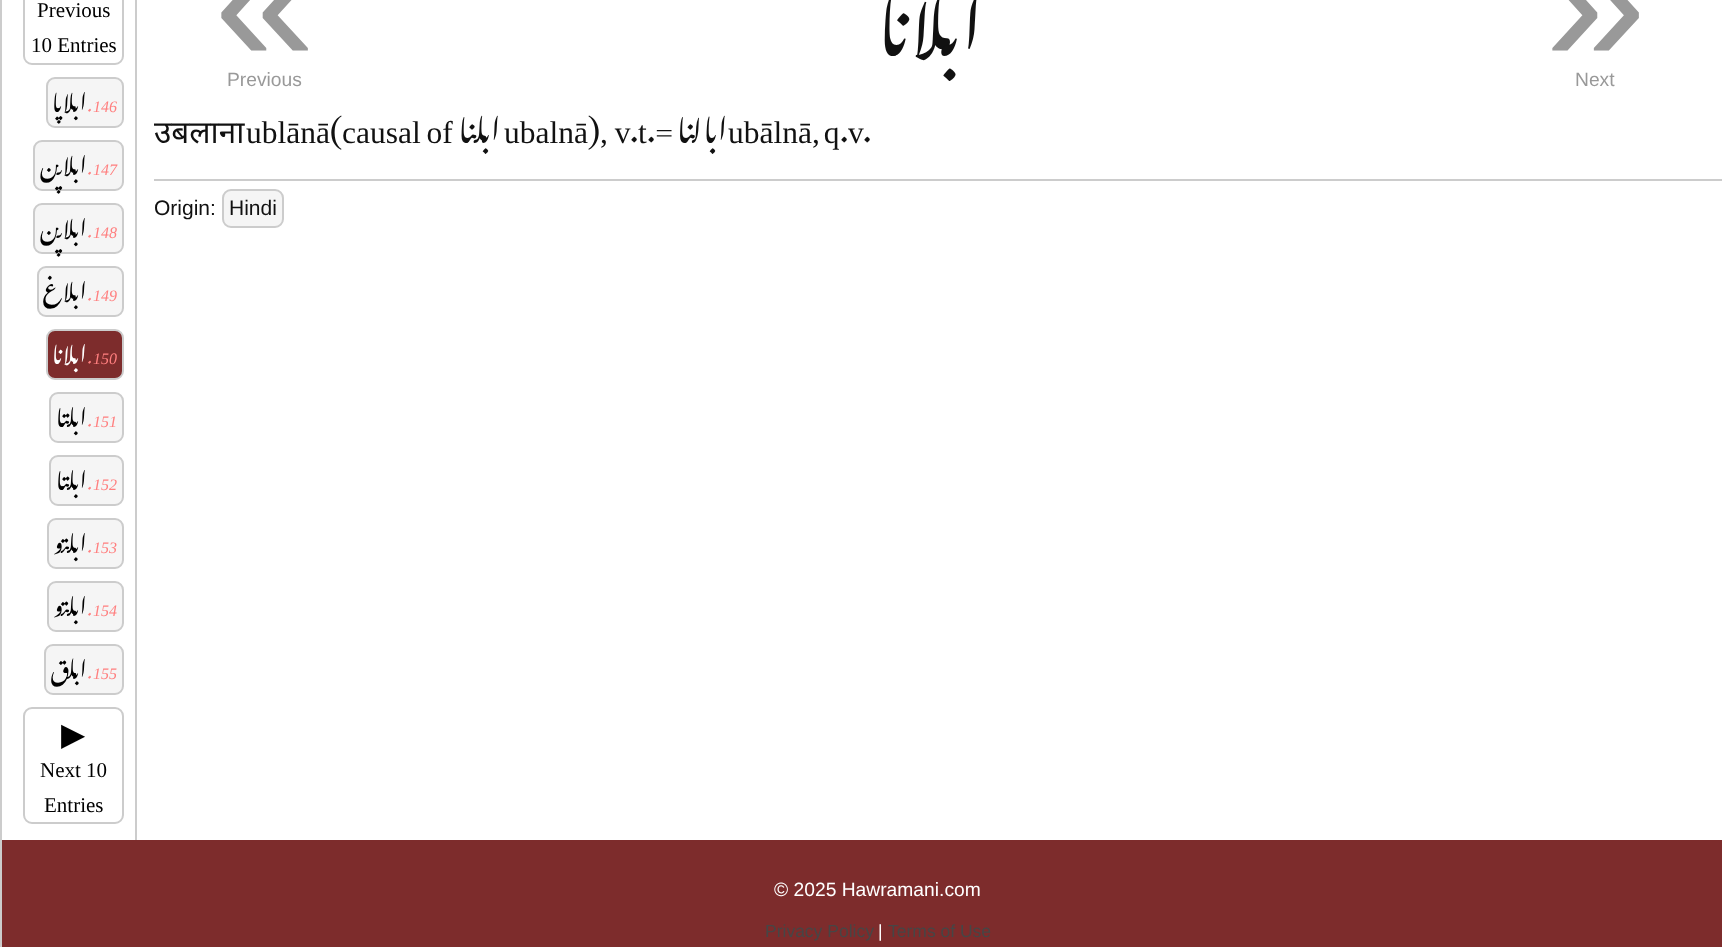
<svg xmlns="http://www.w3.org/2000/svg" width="1722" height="947">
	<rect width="100%" height="100%" fill="#FFFFFF" />
	<rect x="1" y="-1" width="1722" height="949" fill="none" stroke="#CCCCCC" stroke-width="2" />
	<rect x="135" y="0" width="2" height="840" fill="#CCCCCC" />
	<rect x="24" y="-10" width="99" height="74" rx="8" fill="none" stroke="#CCCCCC" stroke-width="2" />
	<g font-family="Liberation Serif" font-size="21" fill="#000000">
		<text x="37" y="17">Previous</text>
		<text x="31" y="52">10 Entries</text>
	</g>
	<rect x="47" y="78" width="76" height="49" rx="8" fill="#F5F5F5" stroke="#CCCCCC" stroke-width="2" />
	<text x="87" y="112" font-family="Noto Nastaliq Urdu" font-size="23" direction="rtl" fill="#000000">ابلاپا</text>
	<text x="87" y="112" font-family="Noto Nastaliq Urdu" font-size="16" font-style="italic" fill="#FF7F7F">.</text>
	<text x="93" y="112" font-family="Liberation Serif" font-size="16" font-style="italic" fill="#FF7F7F">146</text>
	<rect x="34" y="141" width="89" height="49" rx="8" fill="#F5F5F5" stroke="#CCCCCC" stroke-width="2" />
	<text x="87" y="175" font-family="Noto Nastaliq Urdu" font-size="23" direction="rtl" fill="#000000">ابلاپن</text>
	<text x="87" y="175" font-family="Noto Nastaliq Urdu" font-size="16" font-style="italic" fill="#FF7F7F">.</text>
	<text x="93" y="175" font-family="Liberation Serif" font-size="16" font-style="italic" fill="#FF7F7F">147</text>
	<rect x="34" y="204" width="89" height="49" rx="8" fill="#F5F5F5" stroke="#CCCCCC" stroke-width="2" />
	<text x="87" y="238" font-family="Noto Nastaliq Urdu" font-size="23" direction="rtl" fill="#000000">ابلاپن</text>
	<text x="87" y="238" font-family="Noto Nastaliq Urdu" font-size="16" font-style="italic" fill="#FF7F7F">.</text>
	<text x="93" y="238" font-family="Liberation Serif" font-size="16" font-style="italic" fill="#FF7F7F">148</text>
	<rect x="38" y="267" width="85" height="49" rx="8" fill="#F5F5F5" stroke="#CCCCCC" stroke-width="2" />
	<text x="87" y="301" font-family="Noto Nastaliq Urdu" font-size="23" direction="rtl" fill="#000000">ابلاغ</text>
	<text x="87" y="301" font-family="Noto Nastaliq Urdu" font-size="16" font-style="italic" fill="#FF7F7F">.</text>
	<text x="93" y="301" font-family="Liberation Serif" font-size="16" font-style="italic" fill="#FF7F7F">149</text>
	<rect x="47" y="330" width="76" height="49" rx="8" fill="#7D2C2C" stroke="#CCCCCC" stroke-width="2" />
	<text x="87" y="364" font-family="Noto Nastaliq Urdu" font-size="23" direction="rtl" fill="#FFFFFF">ابلانا</text>
	<text x="87" y="364" font-family="Noto Nastaliq Urdu" font-size="16" font-style="italic" fill="#FF7F7F">.</text>
	<text x="93" y="364" font-family="Liberation Serif" font-size="16" font-style="italic" fill="#FF7F7F">150</text>
	<rect x="50" y="393" width="73" height="49" rx="8" fill="#F5F5F5" stroke="#CCCCCC" stroke-width="2" />
	<text x="87" y="427" font-family="Noto Nastaliq Urdu" font-size="23" direction="rtl" fill="#000000">ابلتا</text>
	<text x="87" y="427" font-family="Noto Nastaliq Urdu" font-size="16" font-style="italic" fill="#FF7F7F">.</text>
	<text x="93" y="427" font-family="Liberation Serif" font-size="16" font-style="italic" fill="#FF7F7F">151</text>
	<rect x="50" y="456" width="73" height="49" rx="8" fill="#F5F5F5" stroke="#CCCCCC" stroke-width="2" />
	<text x="87" y="490" font-family="Noto Nastaliq Urdu" font-size="23" direction="rtl" fill="#000000">ابلتا</text>
	<text x="87" y="490" font-family="Noto Nastaliq Urdu" font-size="16" font-style="italic" fill="#FF7F7F">.</text>
	<text x="93" y="490" font-family="Liberation Serif" font-size="16" font-style="italic" fill="#FF7F7F">152</text>
	<rect x="48" y="519" width="75" height="49" rx="8" fill="#F5F5F5" stroke="#CCCCCC" stroke-width="2" />
	<text x="87" y="553" font-family="Noto Nastaliq Urdu" font-size="23" direction="rtl" fill="#000000">ابلتو</text>
	<text x="87" y="553" font-family="Noto Nastaliq Urdu" font-size="16" font-style="italic" fill="#FF7F7F">.</text>
	<text x="93" y="553" font-family="Liberation Serif" font-size="16" font-style="italic" fill="#FF7F7F">153</text>
	<rect x="48" y="582" width="75" height="49" rx="8" fill="#F5F5F5" stroke="#CCCCCC" stroke-width="2" />
	<text x="87" y="616" font-family="Noto Nastaliq Urdu" font-size="23" direction="rtl" fill="#000000">ابلتو</text>
	<text x="87" y="616" font-family="Noto Nastaliq Urdu" font-size="16" font-style="italic" fill="#FF7F7F">.</text>
	<text x="93" y="616" font-family="Liberation Serif" font-size="16" font-style="italic" fill="#FF7F7F">154</text>
	<rect x="45" y="645" width="78" height="49" rx="8" fill="#F5F5F5" stroke="#CCCCCC" stroke-width="2" />
	<text x="87" y="679" font-family="Noto Nastaliq Urdu" font-size="23" direction="rtl" fill="#000000">ابلق</text>
	<text x="87" y="679" font-family="Noto Nastaliq Urdu" font-size="16" font-style="italic" fill="#FF7F7F">.</text>
	<text x="93" y="679" font-family="Liberation Serif" font-size="16" font-style="italic" fill="#FF7F7F">155</text>
	<rect x="24" y="708" width="99" height="115" rx="8" fill="none" stroke="#CCCCCC" stroke-width="2" />
	<text x="61" y="745" font-family="DejaVu Sans" font-size="31.5" fill="#000000">▶</text>
	<g font-family="Liberation Serif" font-size="21" fill="#000000">
		<text x="40" y="777">Next 10</text>
		<text x="44" y="812">Entries</text>
	</g>
	<text x="214" y="63" font-family="Liberation Sans" font-size="182" fill="#999999">«</text>
	<text x="227" y="86" font-family="Liberation Sans" font-size="19.25" fill="#999999">Previous</text>
	<text x="984" y="56" font-family="Noto Nastaliq Urdu" font-size="70" direction="rtl" fill="#111111">ابلانا</text>
	<text x="1545" y="63" font-family="Liberation Sans" font-size="182" fill="#999999">»</text>
	<text x="1575" y="86" font-family="Liberation Sans" font-size="19.25" fill="#999999">Next</text>
	<text x="154" y="143" font-family="Noto Sans" font-size="31.5" fill="#111111">उबलाना</text>
	<text x="246" y="143" font-family="Liberation Serif" font-size="31.5" fill="#111111">ublānā</text>
	<text x="330" y="143" font-family="Noto Nastaliq Urdu" font-size="31.5" fill="#111111">(</text>
	<text x="342" y="143" word-spacing="-2" font-family="Liberation Serif" font-size="31.5" fill="#111111">causal of</text>
	<text x="501" y="143" font-family="Noto Nastaliq Urdu" font-size="31.5" direction="rtl" fill="#111111">ابلنا</text>
	<text x="504" y="143" font-family="Liberation Serif" font-size="31.5" fill="#111111">ubalnā</text>
	<text x="588" y="143" font-family="Noto Nastaliq Urdu" font-size="31.5" fill="#111111">)</text>
	<text x="600" y="143" word-spacing="-1" font-family="Liberation Serif" font-size="31.5" fill="#111111">, v</text>
	<text x="630" y="143" font-family="Noto Nastaliq Urdu" font-size="31.5" fill="#111111">.</text>
	<text x="638" y="143" font-family="Liberation Serif" font-size="31.5" fill="#111111">t</text>
	<text x="647" y="143" font-family="Noto Nastaliq Urdu" font-size="31.5" fill="#111111">.=</text>
	<text x="728" y="143" font-family="Noto Nastaliq Urdu" font-size="31.5" direction="rtl" fill="#111111">ابالنا</text>
	<text x="728" y="143" word-spacing="-4" font-family="Liberation Serif" font-size="31.5" fill="#111111">ubālnā, q</text>
	<text x="840" y="143" font-family="Noto Nastaliq Urdu" font-size="31.5" fill="#111111">.</text>
	<text x="848" y="143" font-family="Liberation Serif" font-size="31.5" fill="#111111">v</text>
	<text x="863" y="143" font-family="Noto Nastaliq Urdu" font-size="31.5" fill="#111111">.</text>
	<rect x="154" y="179" width="1568" height="2" fill="#CCCCCC" />
	<text x="154" y="215" font-family="Liberation Sans" font-size="21" fill="#111111">Origin:</text>
	<rect x="223" y="190" width="60" height="37" rx="8" fill="#F5F5F5" stroke="#CCCCCC" stroke-width="2" />
	<text x="229" y="215" font-family="Liberation Sans" font-size="21" fill="#111111">Hindi</text>
	<rect x="2" y="840" width="1720" height="107" fill="#7D2C2C" />
	<text x="774" y="896" font-family="Liberation Sans" font-size="19.25" fill="#FFFFFF">© 2025 Hawramani.com</text>
	<text x="765" y="937" font-family="Liberation Sans" font-size="17.5" fill="#464646">Privacy Policy</text>
	<text x="878" y="937" font-family="Liberation Sans" font-size="17.5" fill="#FFFFFF">|</text>
	<text x="888" y="937" font-family="Liberation Sans" font-size="17.5" fill="#464646">Terms of Use</text>
</svg>
